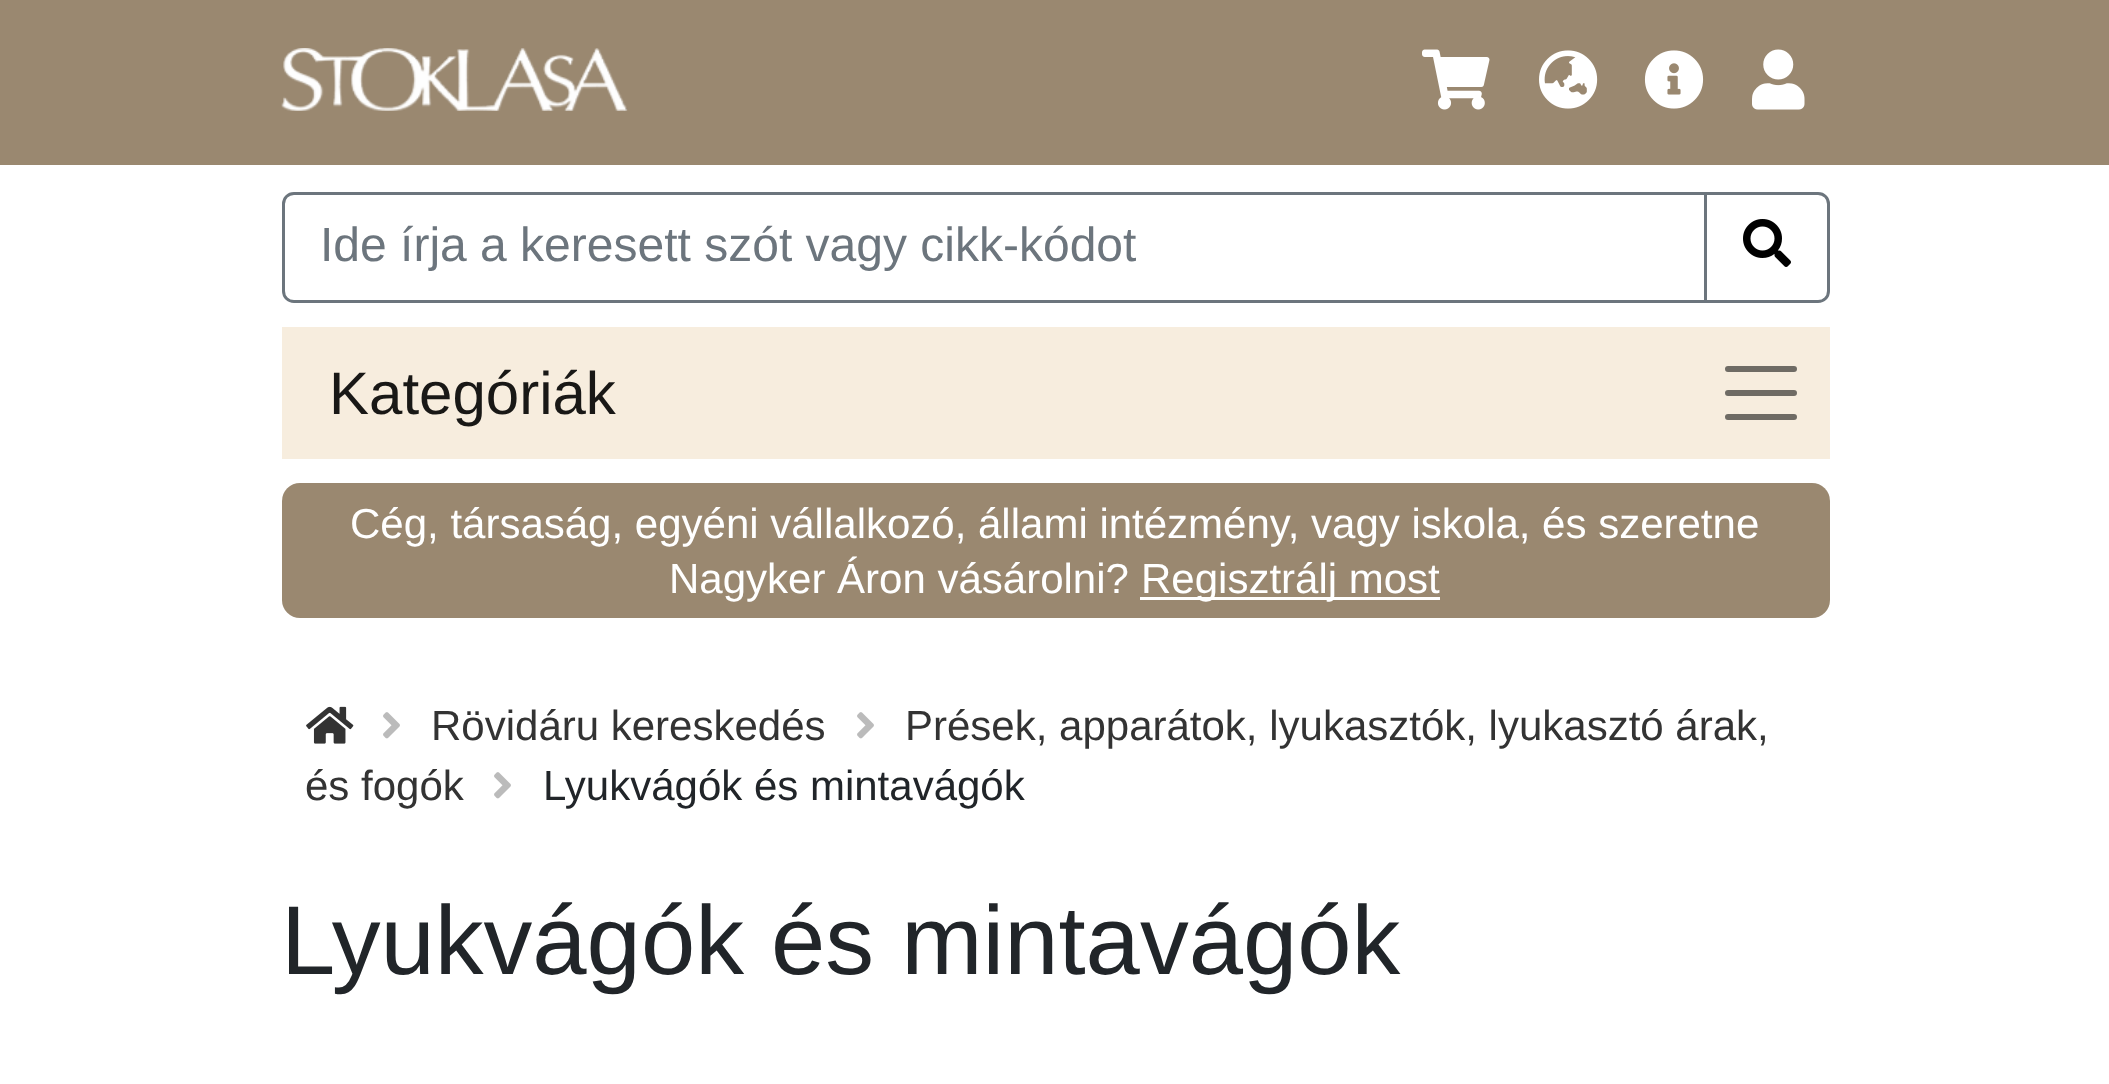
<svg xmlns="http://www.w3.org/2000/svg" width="2109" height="1084">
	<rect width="100%" height="100%" fill="#FFFFFF" />
	<rect x="0" y="0" width="2109" height="165" fill="#9A8870" />
	<image x="281" y="48" width="347" height="63" href="assets/img1.png" />
	<image x="1422" y="49" width="68" height="61" href="assets/img2.png" />
	<image x="1539" y="50" width="59" height="59" href="assets/img3.png" />
	<image x="1644" y="50" width="60" height="59" href="assets/img4.png" />
	<image x="1752" y="49" width="53" height="61" href="assets/img5.png" />
	<path d="M294 193.5H1705.5V301.5H294C288 301.5 283.5 297 283.5 291V204C283.5 198 288 193.5 294 193.5Z" fill="none" stroke="#6C757D" stroke-width="3" />
	<text x="320" y="261" font-family="Liberation Sans" font-size="48" fill="#6C757D">Ide írja a keresett szót vagy cikk-kódot</text>
	<path d="M1705.5 193.5H1818C1824 193.5 1828.5 198 1828.5 204V291C1828.5 297 1824 301.5 1818 301.5H1705.5Z" fill="#FFFFFF" stroke="#6C757D" stroke-width="3" />
	<image x="1743" y="219" width="48" height="48" href="assets/img6.png" />
	<rect x="282" y="327" width="1548" height="132" fill="#F7EDDE" />
	<text x="329" y="414" font-family="Liberation Sans" font-size="60" fill="#191816">Kategóriák</text>
	<path d="M1728 369H1794M1728 393H1794M1728 417H1794" fill="none" stroke="#6F6B64" stroke-width="6" stroke-linecap="round" />
	<rect x="282" y="483" width="1548" height="135" rx="18" fill="#9A8870" />
	<g font-family="Liberation Sans" font-size="42" fill="#FFFFFF">
		<text x="350" y="538">Cég, társaság, egyéni vállalkozó, állami intézmény, vagy iskola, és szeretne</text>
		<text x="669" y="593">Nagyker Áron vásárolni?</text>
	</g>
	<rect x="1140" y="597" width="300" height="3" fill="#FFFFFF" />
	<text x="1141" y="593" font-family="Liberation Sans" font-size="42" fill="#FFFFFF">Regisztrálj most</text>
	<image x="306" y="706" width="48" height="38" href="assets/img7.png" />
	<image x="383" y="712" width="17" height="27" href="assets/img8.png" />
	<text x="431" y="740" font-family="Liberation Sans" font-size="42" fill="#333333">Rövidáru kereskedés</text>
	<image x="857" y="712" width="17" height="27" href="assets/img8.png" />
	<g font-family="Liberation Sans" font-size="42" fill="#333333">
		<text x="905" y="740">Prések, apparátok, lyukasztók, lyukasztó árak,</text>
		<text x="305" y="800">és fogók</text>
	</g>
	<image x="494" y="772" width="17" height="27" href="assets/img8.png" />
	<text x="543" y="800" font-family="Liberation Sans" font-size="42" fill="#212529">Lyukvágók és mintavágók</text>
	<text x="281" y="974" font-family="Liberation Sans" font-size="97.6" fill="#212529">Lyukvágók és mintavágók</text>
</svg>
